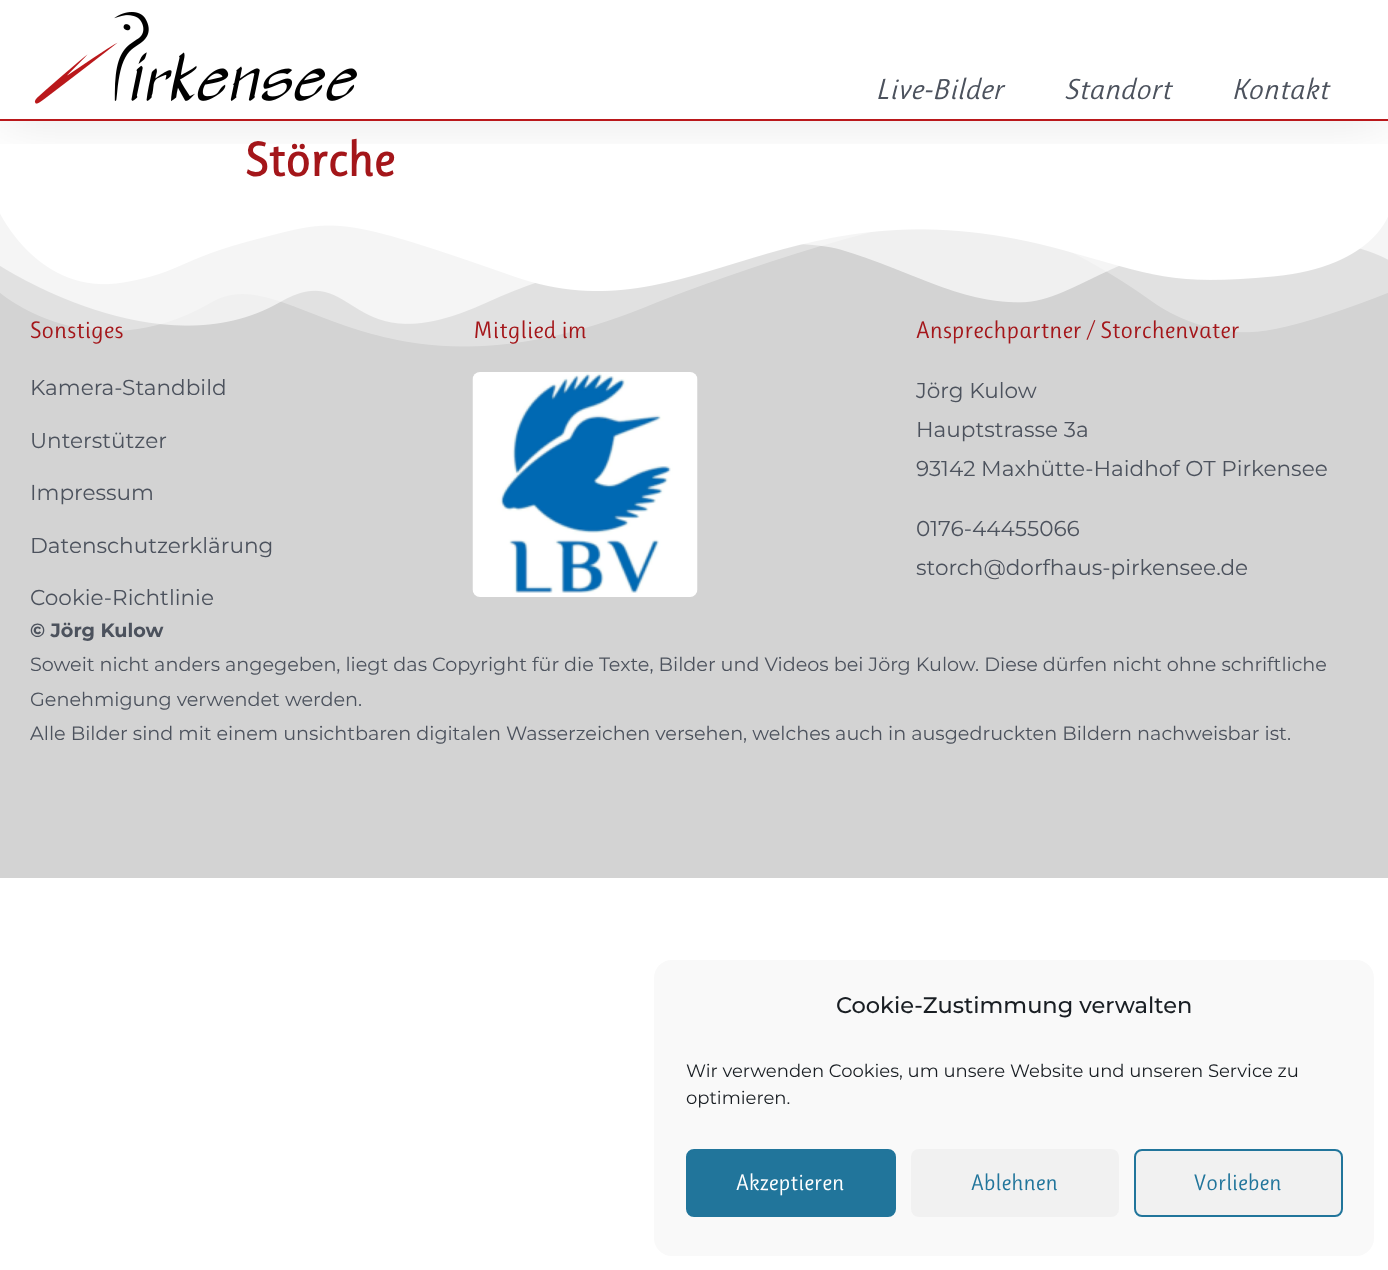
<svg xmlns="http://www.w3.org/2000/svg" width="1388" height="1270">
	<defs>
		<clipPath id="clip1"><rect x="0" y="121" width="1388" height="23" /></clipPath>
	</defs>
	<rect width="100%" height="100%" fill="#FFFFFF" />
	<g clip-path="url(#clip1)">
		<rect x="0" y="0" width="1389" height="120" fill="#000000" fill-opacity="0.1" filter="blur(28.5px)" />
	</g>
	<rect x="0" y="119" width="1388" height="2" fill="#BA181B" />
	<image x="34" y="12" width="323" height="92" href="assets/img1.png" />
	<g font-family="Ruluko" font-size="29" font-style="italic" fill="#4C525D">
		<text x="875" y="99">Live-Bilder</text>
		<text x="1064" y="99">Standort</text>
		<text x="1231" y="99">Kontakt</text>
	</g>
	<text x="245" y="176" font-family="Ruluko" font-size="48" font-weight="700" fill="#A4161A">Störche</text>
	<rect x="0" y="213" width="1388" height="665" fill="#D3D3D3" />
	<image x="0" y="213" width="1388" height="134" href="assets/img2.png" />
	<text x="30" y="338" font-family="Ruluko" font-size="24" fill="#A4161A">Sonstiges</text>
	<g font-family="Montserrat" font-size="21.6" fill="#4C525D">
		<text x="30" y="395">Kamera-Standbild</text>
		<text x="30" y="448">Unterstützer</text>
		<text x="30" y="500">Impressum</text>
		<text x="30" y="553">Datenschutzerklärung</text>
		<text x="30" y="605">Cookie-Richtlinie</text>
	</g>
	<text x="473" y="338" font-family="Ruluko" font-size="24" fill="#A4161A">Mitglied im</text>
	<image x="472" y="372" width="226" height="225" href="assets/img3.png" />
	<text x="916" y="338" font-family="Ruluko" font-size="24" fill="#A4161A">Ansprechpartner / Storchenvater</text>
	<g font-family="Montserrat" font-size="21.6" fill="#4C525D">
		<text x="916" y="398">Jörg Kulow</text>
		<text x="916" y="437">Hauptstrasse 3a</text>
		<text x="916" y="476">93142 Maxhütte-Haidhof OT Pirkensee</text>
		<text x="916" y="536">0176-44455066</text>
		<text x="916" y="575">storch@dorfhaus-pirkensee.de</text>
	</g>
	<text x="30" y="637" font-family="Montserrat" font-size="19.2" font-weight="700" fill="#4C525D">© Jörg Kulow</text>
	<g font-family="Montserrat" font-size="19.2" fill="#4C525D">
		<text x="30" y="671">Soweit nicht anders angegeben, liegt das Copyright für die Texte, Bilder und Videos bei Jörg Kulow. Diese dürfen nicht ohne schriftliche</text>
		<text x="30" y="706">Genehmigung verwendet werden.</text>
		<text x="30" y="740">Alle Bilder sind mit einem unsichtbaren digitalen Wasserzeichen versehen, welches auch in ausgedruckten Bildern nachweisbar ist.</text>
	</g>
	<rect x="654" y="960" width="720" height="296" rx="18" fill="#F9F9F9" />
	<text x="836" y="1013" font-family="Montserrat" font-size="22.5" font-weight="500" fill="#191E23">Cookie-Zustimmung verwalten</text>
	<g font-family="Montserrat" font-size="18" fill="#191E23">
		<text x="686" y="1077">Wir verwenden Cookies, um unsere Website und unseren Service zu</text>
		<text x="686" y="1104">optimieren.</text>
	</g>
	<rect x="687" y="1150" width="208" height="66" rx="7" fill="#21759B" stroke="#21759B" stroke-width="2" />
	<text x="736" y="1190" font-family="Ruluko" font-size="22.5" fill="#FFFFFF">Akzeptieren</text>
	<rect x="911" y="1149" width="208" height="68" rx="8" fill="#F1F1F1" />
	<text x="971" y="1190" font-family="Ruluko" font-size="22.5" fill="#21759B">Ablehnen</text>
	<rect x="1135" y="1150" width="207" height="66" rx="7" fill="#F1F1F1" stroke="#21759B" stroke-width="2" />
	<text x="1194" y="1190" font-family="Ruluko" font-size="22.5" fill="#21759B">Vorlieben</text>
</svg>
